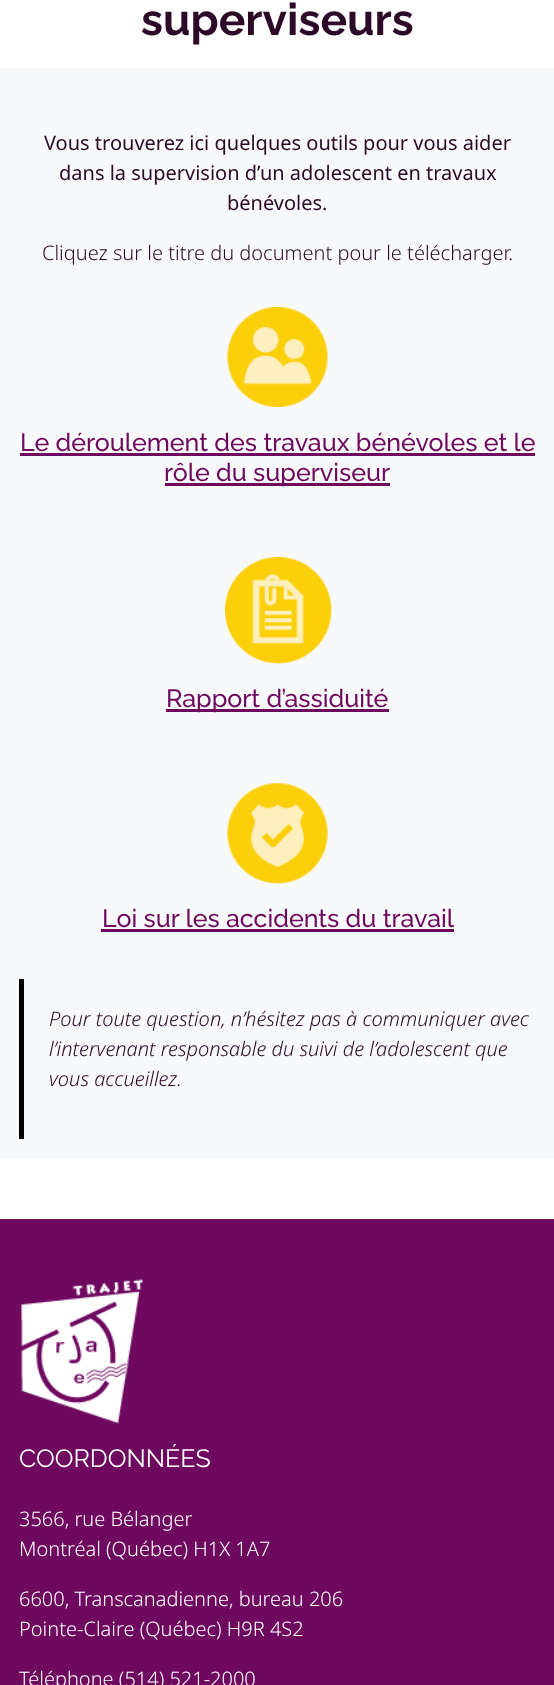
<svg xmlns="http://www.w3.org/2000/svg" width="554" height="1685">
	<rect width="100%" height="100%" fill="#FFFFFF" />
	<rect x="0" y="68" width="554" height="1091" fill="#F8F9FA" />
	<text x="141" y="35" font-family="Raleway" font-size="44.5" font-weight="700" fill="#2C0A27">superviseurs</text>
	<g font-family="Noto Sans" font-size="20" fill="#2C0A27">
		<text x="44" y="150">Vous trouverez ici quelques outils pour vous aider</text>
		<text x="59" y="180">dans la supervision d’un adolescent en travaux</text>
		<text x="227" y="210">bénévoles.</text>
	</g>
	<text x="42" y="260" font-family="Noto Sans" font-size="20" font-weight="300" fill="#2C0A27">Cliquez sur le titre du document pour le télécharger.</text>
	<image x="227" y="307" width="101" height="100" href="assets/img1.png" />
	<text x="20" y="451" font-family="Raleway" font-size="25" font-weight="500" fill="#6E095F">Le déroulement des travaux bénévoles et le</text>
	<rect x="20" y="453" width="515" height="3" fill="#6E095F" />
	<rect x="165" y="483" width="225" height="3" fill="#6E095F" />
	<text x="164" y="481" font-family="Raleway" font-size="25" font-weight="500" fill="#6E095F">rôle du superviseur</text>
	<image x="225" y="557" width="107" height="107" href="assets/img2.png" />
	<rect x="166" y="709" width="223" height="3" fill="#6E095F" />
	<text x="166" y="707" font-family="Raleway" font-size="25" font-weight="500" fill="#6E095F">Rapport d’assiduité</text>
	<image x="227" y="783" width="101" height="101" href="assets/img3.png" />
	<text x="102" y="927" font-family="Raleway" font-size="25" font-weight="500" fill="#6E095F">Loi sur les accidents du travail</text>
	<rect x="101" y="929" width="353" height="3" fill="#6E095F" />
	<rect x="19" y="979" width="5" height="160" fill="#000000" />
	<g font-family="Noto Sans" font-size="20" font-weight="300" font-style="italic" fill="#2C0A27">
		<text x="49" y="1026">Pour toute question, n’hésitez pas à communiquer avec</text>
		<text x="49" y="1056">l’intervenant responsable du suivi de l’adolescent que</text>
		<text x="49" y="1086">vous accueillez.</text>
	</g>
	<rect x="0" y="1219" width="554" height="466" fill="#6E095F" />
	<image x="21" y="1279" width="122" height="145" href="assets/img4.png" />
	<text x="19" y="1467" font-family="Raleway" font-size="25" fill="#FFFFFF">COORDONNÉES</text>
	<g font-family="Noto Sans" font-size="20" font-weight="300" fill="#FFFFFF">
		<text x="19" y="1526">3566, rue Bélanger</text>
		<text x="19" y="1556">Montréal (Québec) H1X 1A7</text>
		<text x="19" y="1606">6600, Transcanadienne, bureau 206</text>
		<text x="19" y="1636">Pointe-Claire (Québec) H9R 4S2</text>
		<text x="19" y="1686">Téléphone (514) 521-2000</text>
	</g>
</svg>
